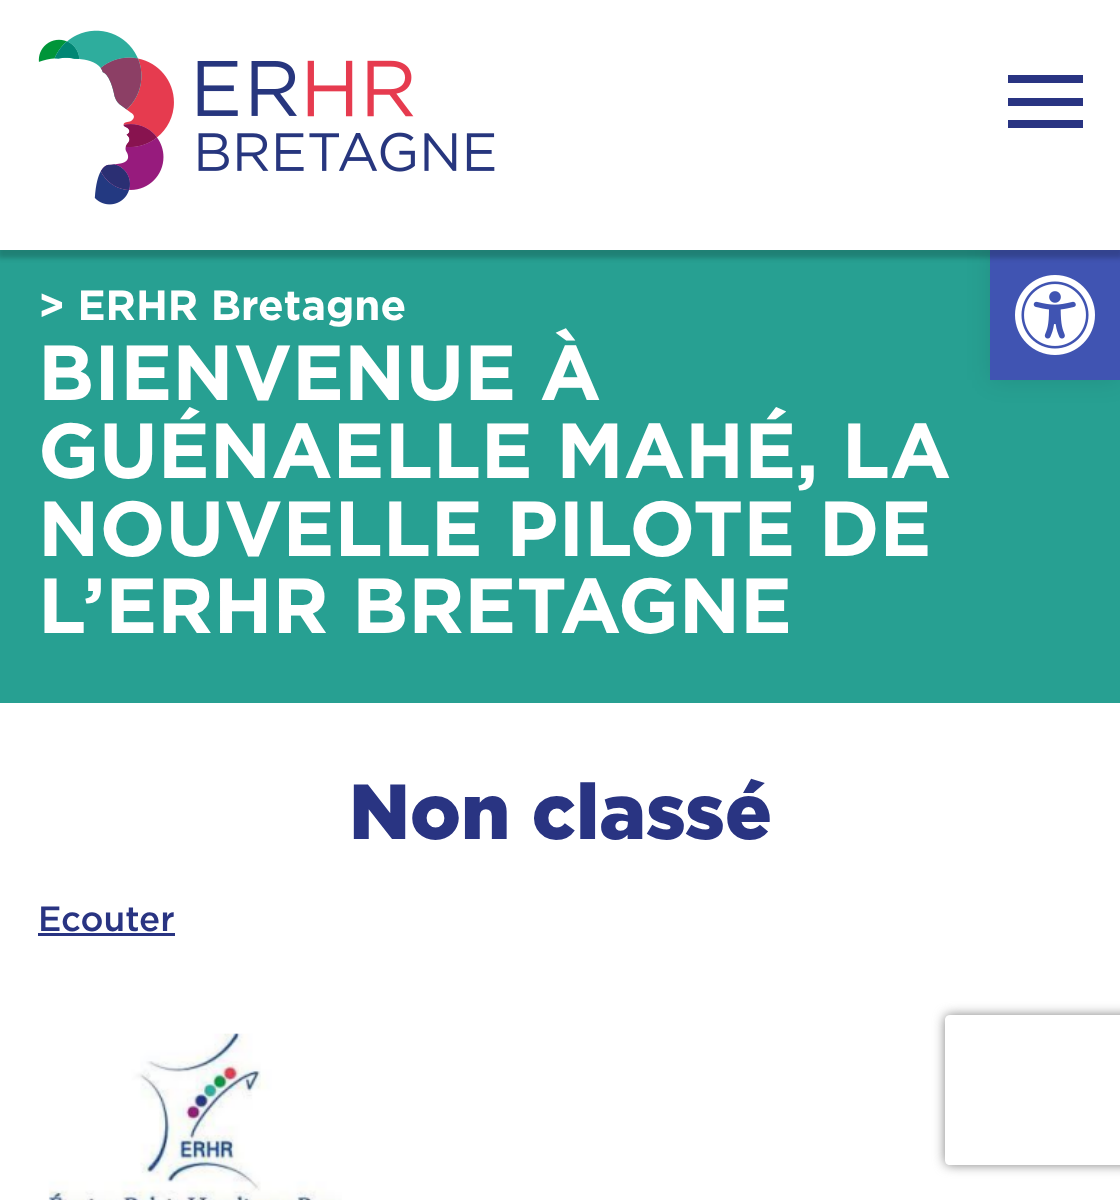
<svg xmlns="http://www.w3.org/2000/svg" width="1120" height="1200">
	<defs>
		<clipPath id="clip1"><path d="M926 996H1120V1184H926ZM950 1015H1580C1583 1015 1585 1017 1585 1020V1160C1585 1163 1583 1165 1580 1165H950C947 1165 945 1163 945 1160V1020C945 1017 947 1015 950 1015Z" clip-rule="evenodd" /></clipPath>
	</defs>
	<rect width="100%" height="100%" fill="#FFFFFF" />
	<rect x="0" y="250" width="1120" height="453" fill="#27A092" />
	<rect x="990" y="250" width="130" height="130" fill="#000000" fill-opacity="0.1" filter="blur(12.5px)" />
	<rect x="990" y="250" width="130" height="130" fill="#4054B2" />
	<rect x="-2" y="3" width="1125" height="255" fill="#000000" fill-opacity="0.2" filter="blur(2.5px)" />
	<rect x="0" y="0" width="1120" height="250" fill="#FFFFFF" />
	<image x="38" y="30" width="457" height="175" href="assets/img1.png" />
	<rect x="1008" y="75" width="75" height="8" fill="#293482" />
	<rect x="1008" y="98" width="75" height="8" fill="#293482" />
	<rect x="1008" y="120" width="75" height="8" fill="#293482" />
	<text x="38" y="320" font-family="Gotham" font-size="42" font-weight="700" fill="#FFFFFF">&gt; ERHR Bretagne</text>
	<g font-family="Gotham" font-size="77.75" font-weight="700" fill="#FFFFFF">
		<text x="38" y="400">BIENVENUE À</text>
		<text x="38" y="478">GUÉNAELLE MAHÉ, LA</text>
		<text x="38" y="556">NOUVELLE PILOTE DE</text>
		<text x="38" y="633">L’ERHR BRETAGNE</text>
	</g>
	<text x="349" y="839" font-family="Gotham" font-size="77.75" font-weight="900" fill="#293482">Non classé</text>
	<text x="38" y="931" font-family="Gotham" font-size="35" font-weight="500" fill="#293482">Ecouter</text>
	<rect x="38" y="933" width="137" height="3" fill="#293482" />
	<image x="48" y="1033" width="294" height="167" href="assets/img2.png" />
	<image x="1015" y="275" width="80" height="80" href="assets/img3.png" />
	<g clip-path="url(#clip1)">
		<rect x="945" y="1015" width="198" height="150" rx="5" fill="#808080" filter="blur(6px)" />
	</g>
</svg>
